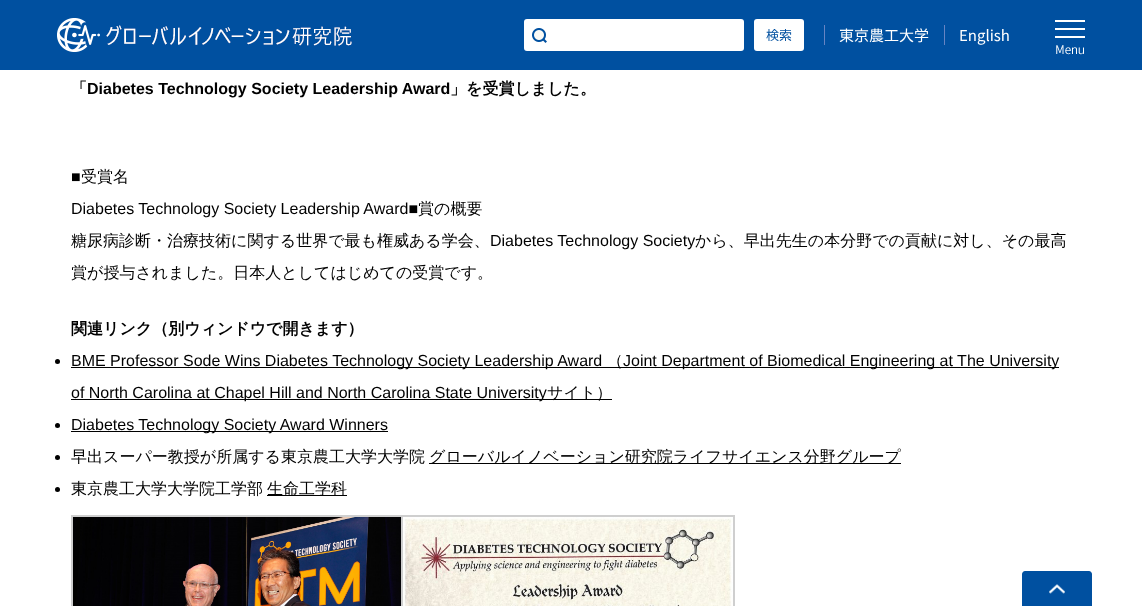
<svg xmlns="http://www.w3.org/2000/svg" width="1142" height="606">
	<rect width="100%" height="100%" fill="#FFFFFF" />
	<rect x="0" y="0" width="1142" height="70" fill="#0050A0" />
	<image x="57" y="18" width="295" height="34" href="assets/img1.png" />
	<rect x="524" y="19" width="220" height="32" rx="3" fill="#FFFFFF" />
	<image x="532" y="28" width="15" height="15" href="assets/img2.png" />
	<rect x="754" y="19" width="50" height="32" rx="3" fill="#FFFFFF" />
	<text x="766" y="40" font-family="Noto Sans JP" font-size="13" font-weight="100" fill="#0050A0">検索</text>
	<rect x="824" y="25" width="1" height="20" fill="#6684C3" />
	<text x="839" y="41" font-family="Noto Sans JP" font-size="15" font-weight="100" fill="#FFFFFF">東京農工大学</text>
	<rect x="944" y="25" width="1" height="20" fill="#6684C3" />
	<text x="959" y="41" font-family="Noto Sans JP" font-size="15" font-weight="100" fill="#FFFFFF">English</text>
	<image x="1055" y="20" width="30" height="35" href="assets/img3.png" />
	<text x="71" y="94" font-family="WenQuanYi Zen Hei" font-size="16" font-weight="700" fill="#000000">「</text>
	<text x="87" y="94" font-family="Liberation Sans" font-size="16" font-weight="700" fill="#000000">Diabetes Technology Society Leadership Award</text>
	<text x="450" y="94" font-family="WenQuanYi Zen Hei" font-size="16" font-weight="700" fill="#000000">」を受賞しました。</text>
	<text x="71" y="182" font-family="Liberation Sans" font-size="16" fill="#000000">■</text>
	<text x="81" y="182" font-family="WenQuanYi Zen Hei" font-size="16" font-weight="500" fill="#000000">受賞名</text>
	<text x="71" y="214" font-family="Liberation Sans" font-size="16" fill="#000000">Diabetes Technology Society Leadership Award■</text>
	<g font-family="WenQuanYi Zen Hei" font-size="16" font-weight="500" fill="#000000">
		<text x="418" y="214">賞の概要</text>
		<text x="71" y="246">糖尿病診断・治療技術に関する世界で最も権威ある学会、</text>
	</g>
	<text x="490" y="246" font-family="Liberation Sans" font-size="16" fill="#000000">Diabetes Technology Society</text>
	<g font-family="WenQuanYi Zen Hei" font-size="16" font-weight="500" fill="#000000">
		<text x="695" y="246">から、早出先生の本分野での貢献に対し、その最高</text>
		<text x="71" y="278">賞が授与されました。日本人としてはじめての受賞です。</text>
	</g>
	<text x="71" y="334" font-family="WenQuanYi Zen Hei" font-size="16" font-weight="700" fill="#000000">関連リンク（別ウィンドウで開きます）</text>
	<circle cx="57.5" cy="361.5" r="2.5" fill="#000000" />
	<rect x="71" y="367" width="988" height="1" fill="#000000" />
	<text x="71" y="366" font-family="Liberation Sans" font-size="16" fill="#000000">BME Professor Sode Wins Diabetes Technology Society Leadership Award</text>
	<text x="607" y="366" font-family="WenQuanYi Zen Hei" font-size="16" font-weight="500" fill="#000000">（</text>
	<text x="623" y="366" font-family="Liberation Sans" font-size="16" fill="#000000">Joint Department of Biomedical Engineering at The University</text>
	<rect x="71" y="399" width="541" height="1" fill="#000000" />
	<text x="71" y="398" font-family="Liberation Sans" font-size="16" fill="#000000">of North Carolina at Chapel Hill and North Carolina State University</text>
	<text x="547" y="398" font-family="WenQuanYi Zen Hei" font-size="16" font-weight="500" fill="#000000">サイト）</text>
	<circle cx="57.5" cy="425.5" r="2.5" fill="#000000" />
	<rect x="71" y="431" width="317" height="1" fill="#000000" />
	<text x="71" y="430" font-family="Liberation Sans" font-size="16" fill="#000000">Diabetes Technology Society Award Winners</text>
	<circle cx="57.5" cy="457.5" r="2.5" fill="#000000" />
	<text x="71" y="462" font-family="WenQuanYi Zen Hei" font-size="16" font-weight="500" fill="#000000">早出スーパー教授が所属する東京農工大学大学院</text>
	<rect x="429" y="463" width="472" height="1" fill="#000000" />
	<text x="429" y="462" font-family="WenQuanYi Zen Hei" font-size="16" font-weight="500" fill="#000000">グローバルイノベーション研究院ライフサイエンス分野グループ</text>
	<circle cx="57.5" cy="489.5" r="2.5" fill="#000000" />
	<text x="71" y="494" font-family="WenQuanYi Zen Hei" font-size="16" font-weight="500" fill="#000000">東京農工大学大学院工学部</text>
	<rect x="267" y="495" width="80" height="1" fill="#000000" />
	<text x="267" y="494" font-family="WenQuanYi Zen Hei" font-size="16" font-weight="500" fill="#000000">生命工学科</text>
	<rect x="72" y="516" width="332" height="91" fill="none" stroke="#CFCFCF" stroke-width="2" />
	<image x="73" y="517" width="328" height="89" href="assets/img4.png" />
	<rect x="402" y="516" width="332" height="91" fill="none" stroke="#CFCFCF" stroke-width="2" />
	<image x="403" y="517" width="330" height="89" href="assets/img5.png" />
	<path d="M1025 571H1089C1090.5 571 1092 572.5 1092 574V606H1022V574C1022 572.5 1023.5 571 1025 571Z" fill="#0050A0" />
	<image x="1049" y="584" width="16" height="10" href="assets/img6.png" />
</svg>
